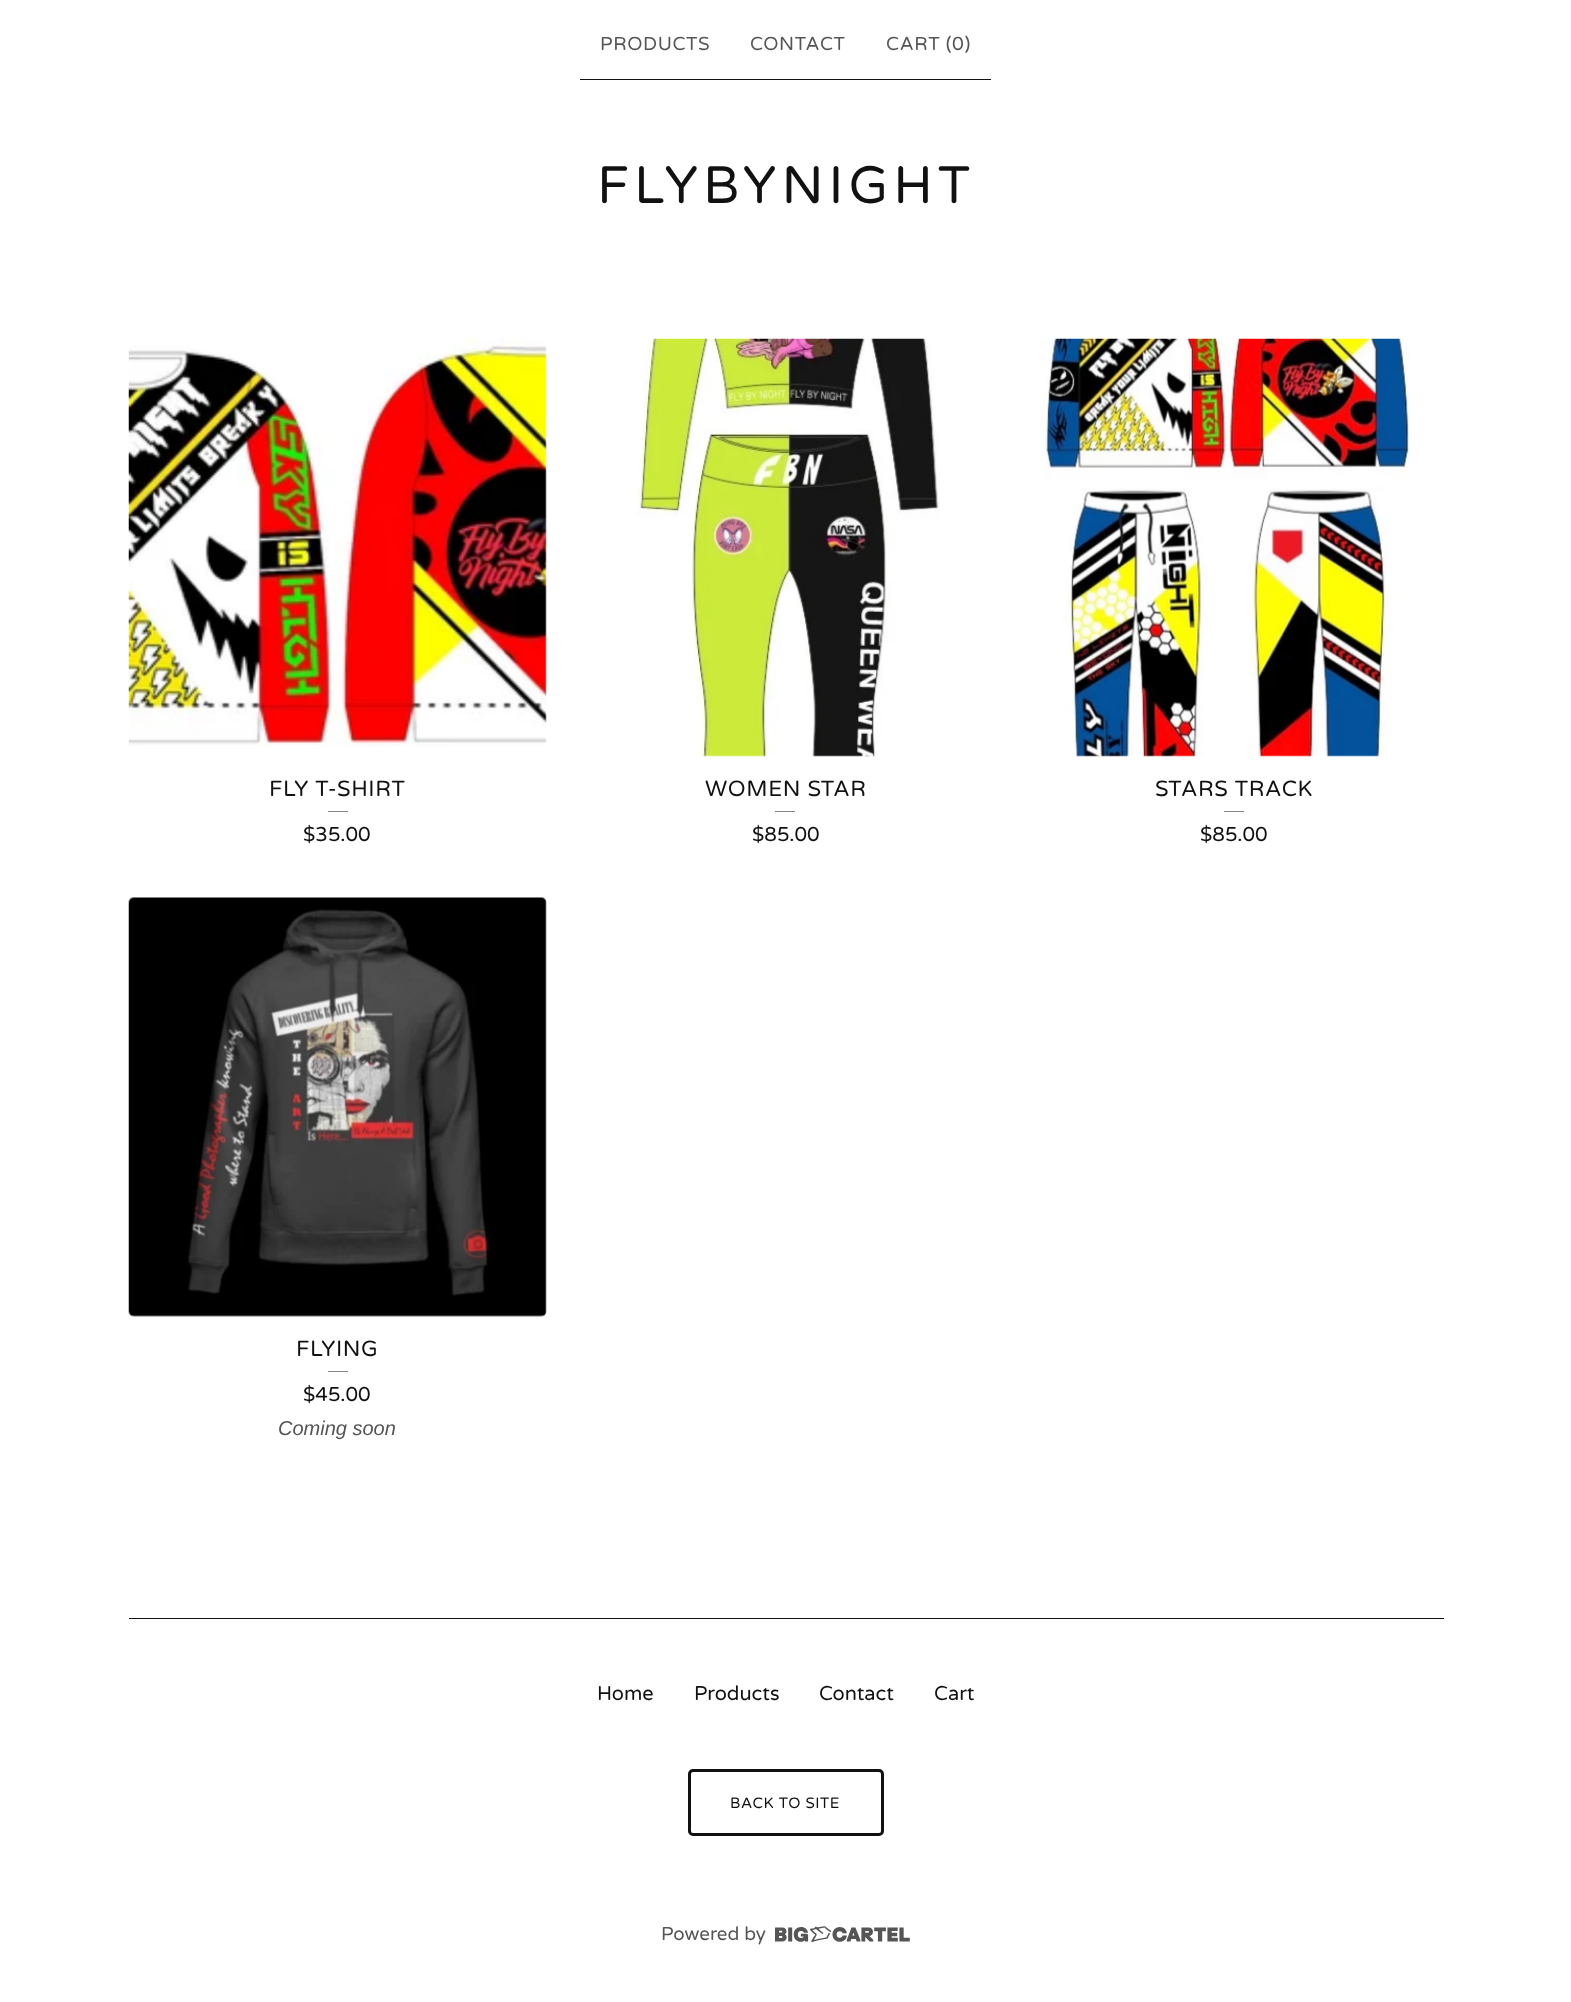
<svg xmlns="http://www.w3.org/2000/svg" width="1571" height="2002">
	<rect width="100%" height="100%" fill="#FFFFFF" />
	<rect x="580" y="79" width="411" height="1" fill="#111111" />
	<g font-family="Varela Round" font-size="18.75" letter-spacing="0.6" fill="#555555">
		<text x="600" y="50">PRODUCTS</text>
		<text x="750" y="50">CONTACT</text>
		<text x="886" y="50">CART (0)</text>
	</g>
	<text x="597" y="203" font-family="Varela Round" font-size="52.5" letter-spacing="5" fill="#111111">FLYBYNIGHT</text>
	<image x="128" y="338" width="419" height="409" href="assets/img1.png" />
	<text x="269" y="796" font-family="Varela Round" font-size="22" letter-spacing="0.6" fill="#111111">FLY T-SHIRT</text>
	<rect x="328" y="811" width="20" height="1" fill="#888888" />
	<text x="303" y="841" font-family="Varela Round" font-size="20" fill="#111111">$35.00</text>
	<image x="637" y="338" width="304" height="419" href="assets/img2.png" />
	<text x="705" y="796" font-family="Varela Round" font-size="22" letter-spacing="0.6" fill="#111111">WOMEN STAR</text>
	<rect x="775" y="811" width="20" height="1" fill="#888888" />
	<text x="752" y="841" font-family="Varela Round" font-size="20" fill="#111111">$85.00</text>
	<image x="1041" y="338" width="369" height="419" href="assets/img3.png" />
	<text x="1155" y="796" font-family="Varela Round" font-size="22" letter-spacing="0.6" fill="#111111">STARS TRACK</text>
	<rect x="1224" y="811" width="20" height="1" fill="#888888" />
	<text x="1200" y="841" font-family="Varela Round" font-size="20" fill="#111111">$85.00</text>
	<image x="128" y="897" width="419" height="420" href="assets/img4.png" />
	<text x="296" y="1356" font-family="Varela Round" font-size="22" letter-spacing="0.6" fill="#111111">FLYING</text>
	<rect x="328" y="1371" width="20" height="1" fill="#888888" />
	<text x="303" y="1401" font-family="Varela Round" font-size="20" fill="#111111">$45.00</text>
	<text x="278" y="1435" font-family="Liberation Sans" font-size="20" font-style="italic" fill="#555555">Coming soon</text>
	<rect x="129" y="1618" width="1315" height="1" fill="#111111" />
	<g font-family="Varela Round" font-size="20" fill="#111111">
		<text x="597" y="1700">Home</text>
		<text x="694" y="1700">Products</text>
		<text x="819" y="1700">Contact</text>
		<text x="934" y="1700">Cart</text>
	</g>
	<rect x="689.5" y="1770.5" width="193" height="64" rx="3.5" fill="none" stroke="#111111" stroke-width="3" />
	<text x="730" y="1808" font-family="Varela Round" font-size="15" letter-spacing="0.6" fill="#111111">BACK TO SITE</text>
	<text x="661" y="1940" font-family="Varela Round" font-size="18.75" fill="#555555">Powered by</text>
	<image x="775" y="1926" width="135" height="16" href="assets/img5.png" />
</svg>
